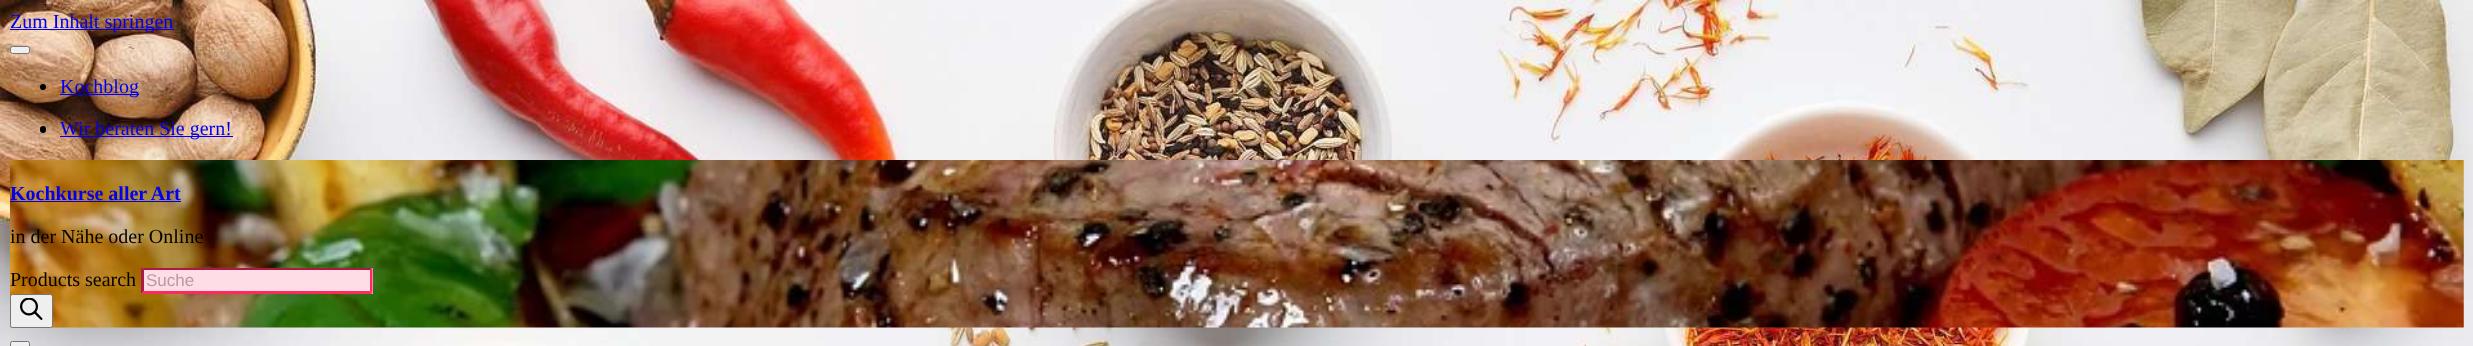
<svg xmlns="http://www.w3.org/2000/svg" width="2473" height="346">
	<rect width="100%" height="100%" fill="#FFFFFF" />
	<image x="0" y="0" width="2473" height="346" href="assets/img1.png" />
	<rect x="10" y="29" width="164" height="1" fill="#0000EE" />
	<text x="10" y="28" font-family="Liberation Serif" font-size="20" fill="#0000EE">Zum Inhalt springen</text>
	<rect x="10.5" y="46.5" width="19" height="7" rx="2" fill="#EFEFEF" stroke="#767676" />
	<circle cx="43" cy="87" r="3" fill="#000000" />
	<rect x="60" y="94" width="79" height="1" fill="#0000EE" />
	<text x="60" y="93" font-family="Liberation Serif" font-size="20" fill="#0000EE">Kochblog</text>
	<rect x="40" y="126" width="6" height="7" rx="3" fill="#000000" />
	<rect x="60" y="136" width="173" height="1" fill="#0000EE" />
	<text x="60" y="135" font-family="Liberation Serif" font-size="20" fill="#0000EE">Wir beraten Sie gern!</text>
	<image x="10" y="160" width="2454" height="168" href="assets/img2.png" />
	<text x="10" y="200" font-family="Liberation Serif" font-size="20" font-weight="700" fill="#0000EE">Kochkurse aller Art</text>
	<rect x="10" y="201" width="171" height="1" fill="#0000EE" />
	<g font-family="Liberation Serif" font-size="20" fill="#000000">
		<text x="10" y="243">in der Nähe oder Online</text>
		<text x="10" y="286">Products search</text>
	</g>
	<rect x="141" y="268" width="232" height="26" fill="#FFDDE6" />
	<path d="M141 268H372L370 270H144Z" fill="#AA1B41" />
	<path d="M372.5 267.5V294L370 291V270Z" fill="#FF2861" />
	<path d="M372 294H141L144 291H370Z" fill="#FF2861" />
	<path d="M141 294V267.5L144 270V291Z" fill="#AA1B41" />
	<text x="146" y="286" font-family="Liberation Sans" font-size="17" fill="#B69BA2">Suche</text>
	<rect x="10.5" y="294.5" width="42" height="33" rx="2" fill="#EFEFEF" stroke="#767676" />
	<image x="20" y="298" width="23" height="22" href="assets/img3.png" />
	<rect x="10.5" y="341.5" width="19" height="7" rx="2" fill="#EFEFEF" stroke="#767676" />
</svg>
